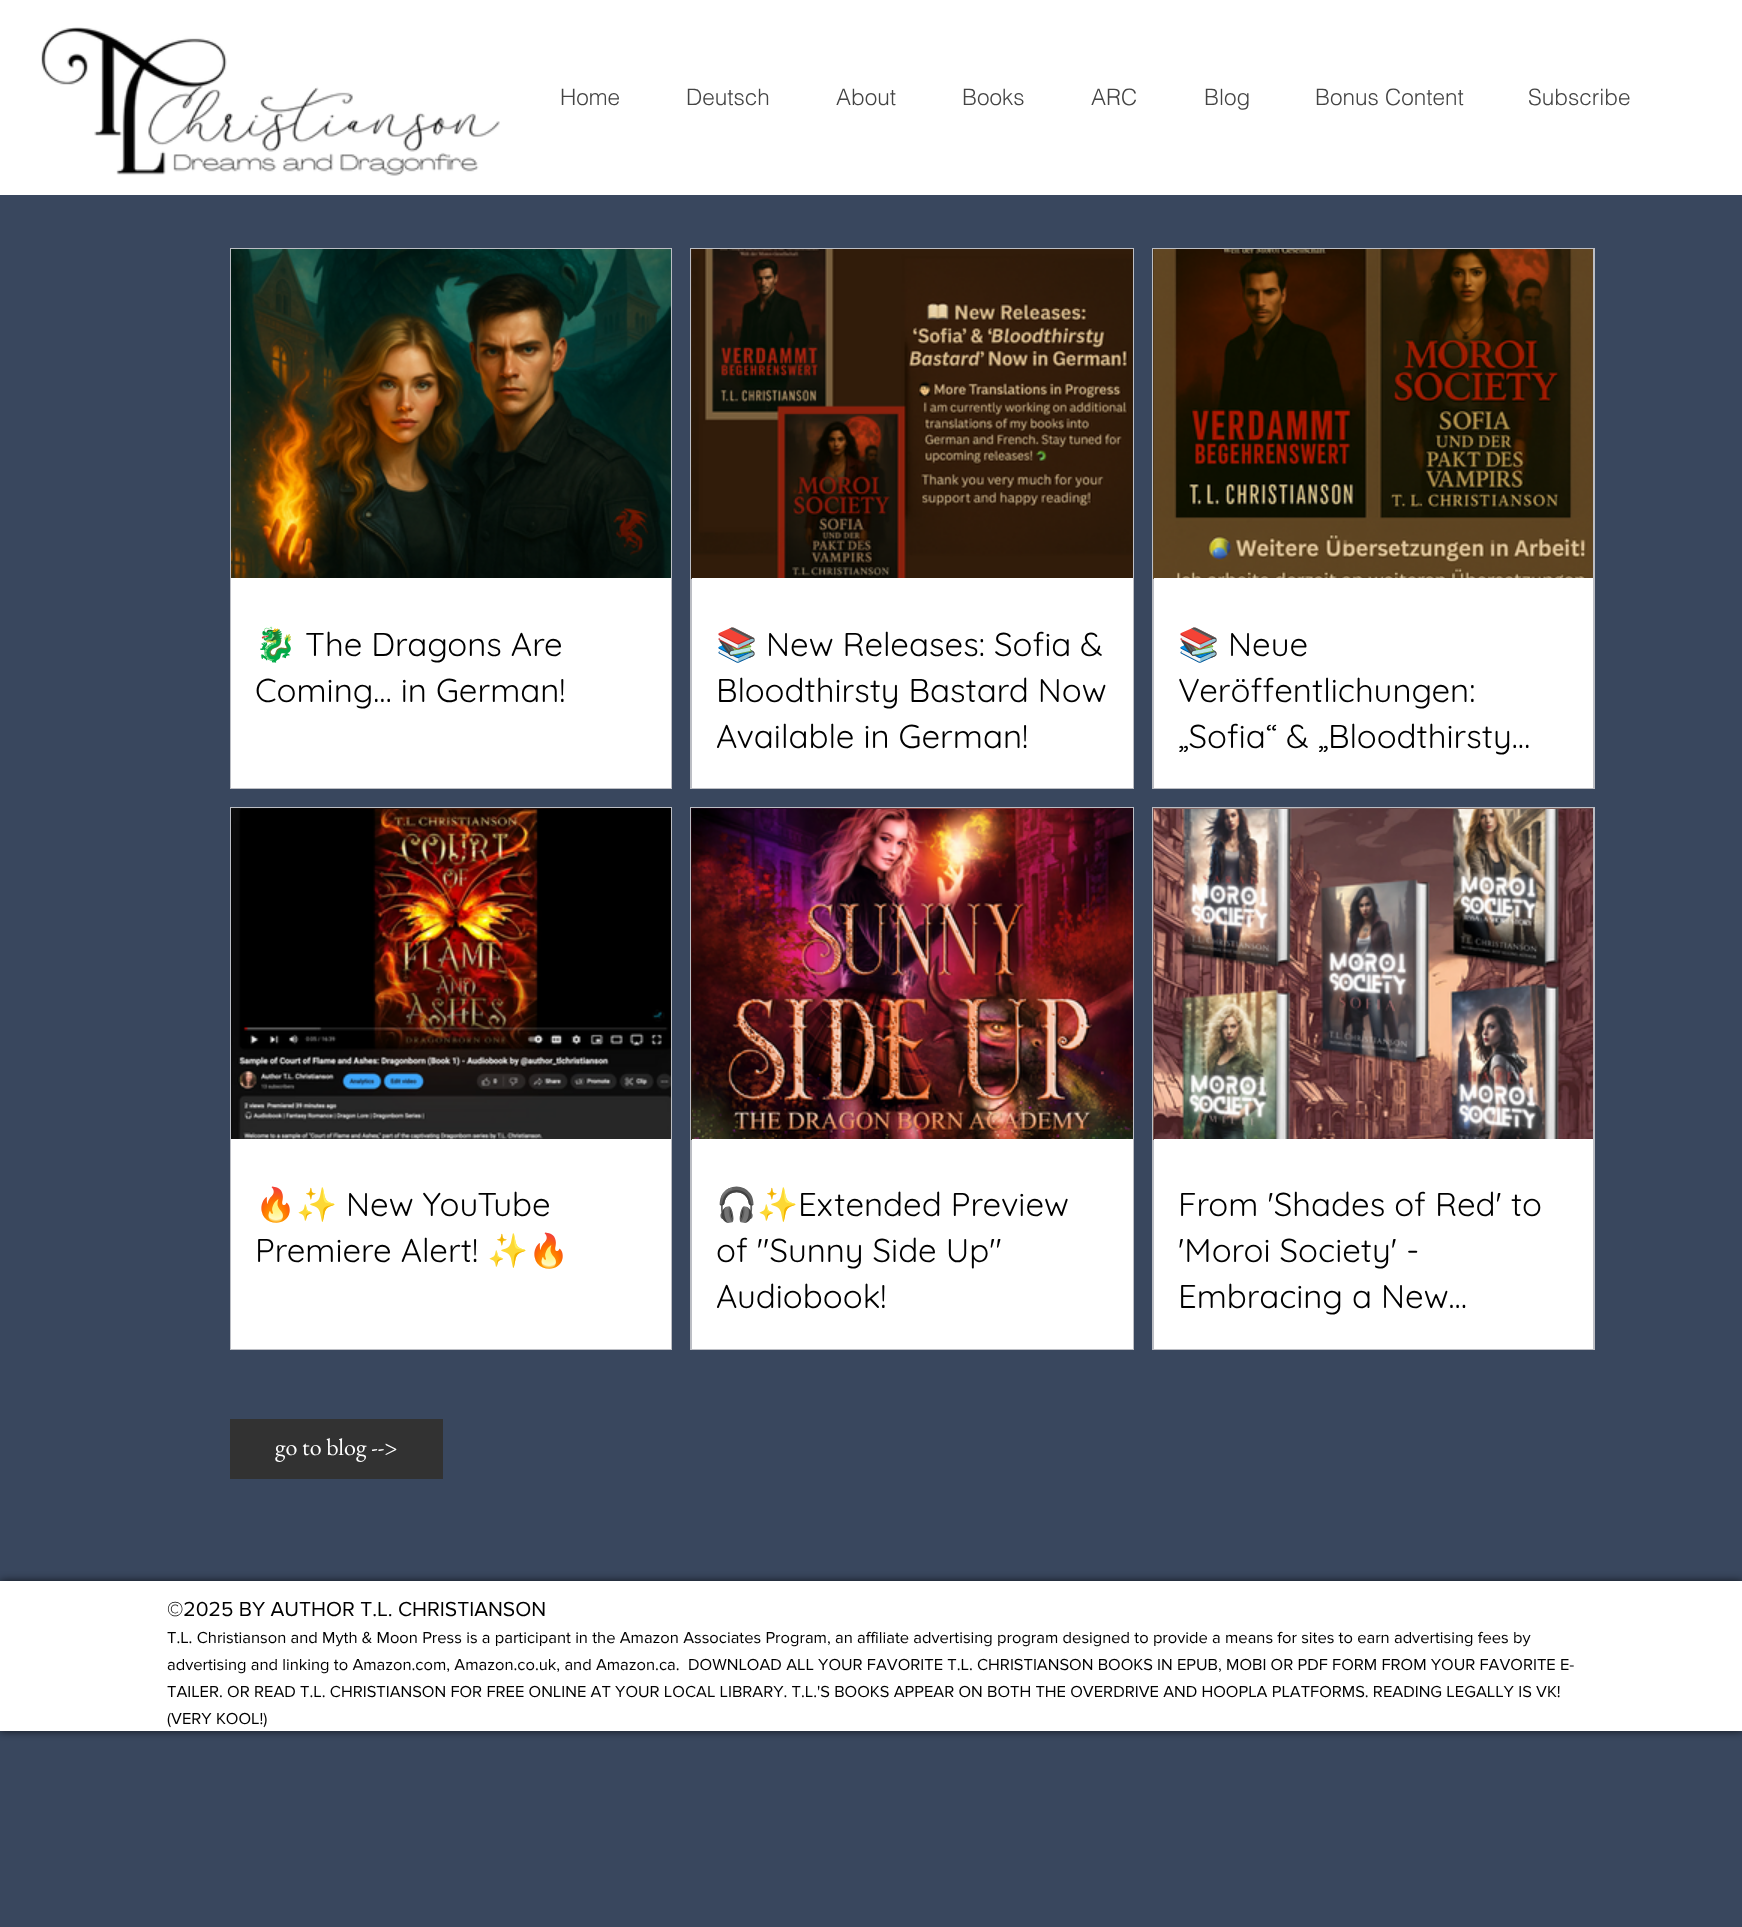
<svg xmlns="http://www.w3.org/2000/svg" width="1742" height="1927">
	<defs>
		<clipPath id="clip1"><rect x="716" y="621" width="393" height="134" /></clipPath>
		<clipPath id="clip2"><rect x="1178" y="621" width="391" height="134" /></clipPath>
		<clipPath id="clip3"><rect x="716" y="1182" width="393" height="134" /></clipPath>
	</defs>
	<rect width="100%" height="100%" fill="#39475E" />
	<rect x="0" y="0" width="1742" height="195" fill="#FFFFFF" />
	<image x="41" y="27" width="459" height="149" href="assets/img1.png" />
	<g font-family="helvetica" font-size="22.5" font-weight="300" fill="#444444">
		<text x="560" y="105">Home</text>
		<text x="686" y="105">Deutsch</text>
		<text x="836" y="105">About</text>
		<text x="962" y="105">Books</text>
		<text x="1091" y="105">ARC</text>
		<text x="1204" y="105">Blog</text>
		<text x="1315" y="105">Bonus Content</text>
		<text x="1528" y="105">Subscribe</text>
	</g>
	<rect x="231" y="249" width="440" height="539" fill="none" stroke="#BCBEC4" stroke-width="2" />
	<image x="231" y="249" width="440" height="329" href="assets/img2.png" />
	<rect x="231" y="578" width="440" height="210" fill="#FFFFFF" />
	<text x="255" y="656" font-family="Noto Color Emoji" font-size="33" fill="#000000">🐉</text>
	<g font-family="Quicksand" font-size="33" fill="#000000">
		<text x="305" y="656">The Dragons Are</text>
		<text x="255" y="702">Coming… in German!</text>
	</g>
	<rect x="691" y="249" width="442" height="539" fill="none" stroke="#BCBEC4" stroke-width="2" />
	<image x="691" y="249" width="1" height="330" href="assets/img3.png" />
	<image x="692" y="249" width="441" height="329" href="assets/img4.png" />
	<rect x="692" y="578" width="441" height="210" fill="#FFFFFF" />
	<g clip-path="url(#clip1)">
		<text x="716" y="656" font-family="Noto Color Emoji" font-size="33" fill="#000000">📚</text>
	</g>
	<g font-family="Quicksand" font-size="33" fill="#000000">
		<text x="766" y="656">New Releases: Sofia &amp;</text>
		<text x="716" y="702">Bloodthirsty Bastard Now</text>
		<text x="716" y="748">Available in German!</text>
	</g>
	<rect x="1153" y="249" width="441" height="539" fill="none" stroke="#BCBEC4" stroke-width="2" />
	<image x="1153" y="249" width="1" height="330" href="assets/img5.png" />
	<image x="1154" y="249" width="439" height="329" href="assets/img6.png" />
	<rect x="1154" y="578" width="439" height="210" fill="#FFFFFF" />
	<g clip-path="url(#clip2)">
		<text x="1178" y="656" font-family="Noto Color Emoji" font-size="33" fill="#000000">📚</text>
	</g>
	<g font-family="Quicksand" font-size="33" fill="#000000">
		<text x="1228" y="656">Neue</text>
		<text x="1178" y="702">Veröffentlichungen:</text>
		<text x="1178" y="748">„Sofia“ &amp; „Bloodthirsty…</text>
	</g>
	<rect x="231" y="808" width="440" height="541" fill="none" stroke="#BCBEC4" stroke-width="2" />
	<image x="231" y="808" width="440" height="1" href="assets/img7.png" />
	<image x="231" y="809" width="440" height="330" href="assets/img8.png" />
	<rect x="231" y="1139" width="440" height="210" fill="#FFFFFF" />
	<text x="255" y="1216" font-family="Noto Color Emoji" font-size="33" fill="#000000">🔥✨</text>
	<g font-family="Quicksand" font-size="33" fill="#000000">
		<text x="346" y="1216">New YouTube</text>
		<text x="255" y="1262">Premiere Alert!</text>
	</g>
	<text x="487" y="1262" font-family="Noto Color Emoji" font-size="33" fill="#000000">✨🔥</text>
	<rect x="691" y="808" width="442" height="541" fill="none" stroke="#BCBEC4" stroke-width="2" />
	<image x="691" y="808" width="442" height="332" href="assets/img9.png" />
	<image x="692" y="809" width="441" height="330" href="assets/img10.png" />
	<rect x="692" y="1139" width="441" height="210" fill="#FFFFFF" />
	<g clip-path="url(#clip3)">
		<text x="716" y="1216" font-family="Noto Color Emoji" font-size="33" fill="#000000">🎧✨</text>
	</g>
	<g font-family="Quicksand" font-size="33" fill="#000000">
		<text x="798" y="1216">Extended Preview</text>
		<text x="716" y="1262">of "Sunny Side Up"</text>
		<text x="716" y="1308">Audiobook!</text>
	</g>
	<rect x="1153" y="808" width="441" height="541" fill="none" stroke="#BCBEC4" stroke-width="2" />
	<image x="1153" y="808" width="440" height="332" href="assets/img11.png" />
	<image x="1154" y="809" width="439" height="330" href="assets/img12.png" />
	<rect x="1154" y="1139" width="439" height="210" fill="#FFFFFF" />
	<g font-family="Quicksand" font-size="33" fill="#000000">
		<text x="1178" y="1216">From 'Shades of Red' to</text>
		<text x="1178" y="1262">'Moroi Society' -</text>
		<text x="1178" y="1308">Embracing a New…</text>
	</g>
	<rect x="230" y="1419" width="213" height="60" fill="#323232" />
	<text x="275" y="1455" font-family="EB Garamond" font-size="24" fill="#FFFFFF">go to blog --&gt;</text>
	<rect x="0" y="1581" width="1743" height="150" fill="#000000" fill-opacity="0.7" filter="blur(4px)" />
	<rect x="0" y="1581" width="1742" height="150" fill="#FFFFFF" />
	<text x="167" y="1616" font-family="'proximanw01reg'" font-size="21" fill="#000000">©2025 BY AUTHOR T.L. CHRISTIANSON</text>
	<g font-family="'proximanw01reg'" font-size="16.5" fill="#000000">
		<text x="167" y="1643">T.L. Christianson and Myth &amp; Moon Press is a participant in the Amazon Associates Program, an affiliate advertising program designed to provide a means for sites to earn advertising fees by</text>
		<text x="167" y="1670">advertising and linking to Amazon.com, Amazon.co.uk, and Amazon.ca.</text>
		<text x="688" y="1670">DOWNLOAD ALL YOUR FAVORITE T.L. CHRISTIANSON BOOKS IN EPUB, MOBI OR PDF FORM FROM YOUR FAVORITE E-</text>
		<text x="167" y="1697">TAILER. OR READ T.L. CHRISTIANSON FOR FREE ONLINE AT YOUR LOCAL LIBRARY. T.L.'S BOOKS APPEAR ON BOTH THE OVERDRIVE AND HOOPLA PLATFORMS. READING LEGALLY IS VK!</text>
		<text x="167" y="1724">(VERY KOOL!)</text>
	</g>
</svg>
